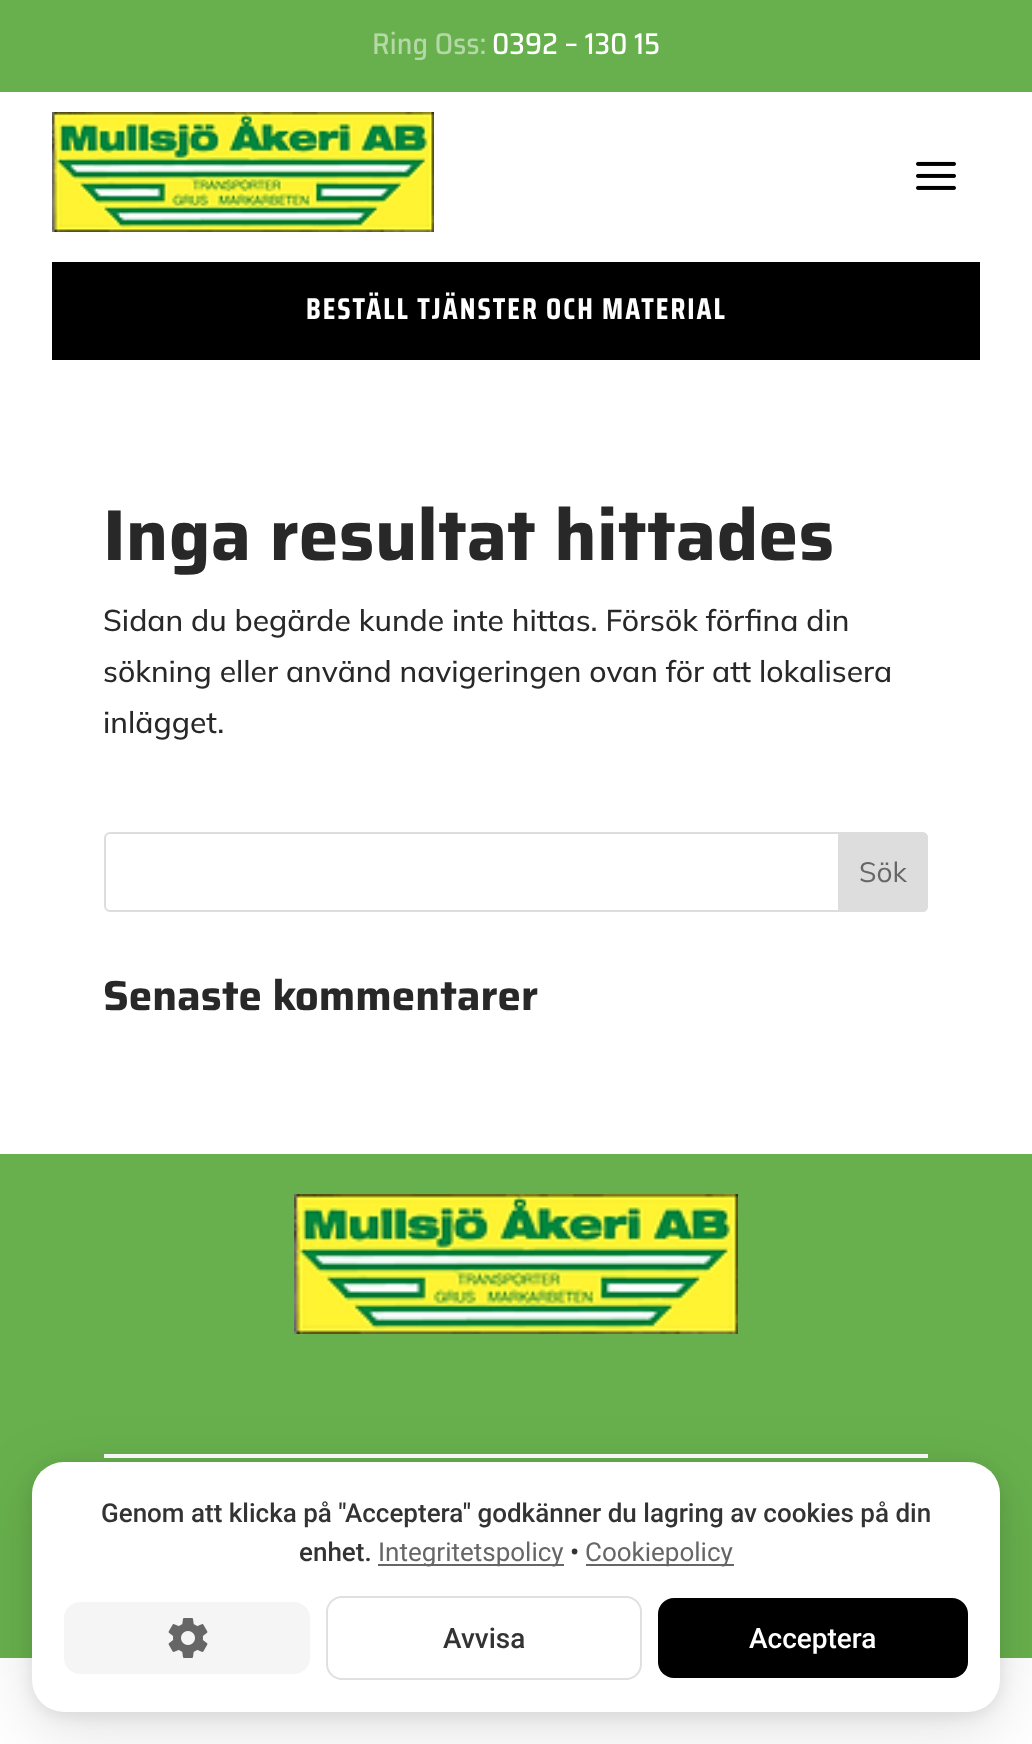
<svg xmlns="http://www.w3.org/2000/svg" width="1032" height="1744">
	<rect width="100%" height="100%" fill="#FFFFFF" />
	<rect x="0" y="0" width="1032" height="92" fill="#68B04D" />
	<image x="374" y="31" width="111" height="30" href="assets/img1.png" />
	<image x="493" y="33" width="166" height="22" href="assets/img2.png" />
	<image x="52" y="112" width="382" height="120" href="assets/img3.png" />
	<image x="916" y="161" width="40" height="29" href="assets/img4.png" />
	<rect x="52" y="262" width="928" height="98" fill="#000000" />
	<text x="306" y="319" font-family="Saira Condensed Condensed" font-size="30" font-weight="700" letter-spacing="2" fill="#FFFFFF">BESTÄLL TJÄNSTER OCH MATERIAL</text>
	<text x="103" y="560" font-family="Saira" font-size="72" font-weight="100" fill="#282828">Inga resultat hittades</text>
	<g font-family="Mulish" font-size="30" font-weight="200" fill="#282828">
		<text x="103" y="631">Sidan du begärde kunde inte hittas. Försök förfina din</text>
		<text x="103" y="682">sökning eller använd navigeringen ovan för att lokalisera</text>
		<text x="103" y="733">inlägget.</text>
	</g>
	<rect x="105" y="833" width="822" height="78" rx="5" fill="none" stroke="#DDDDDD" stroke-width="2" />
	<path d="M839 833H922C925 833 927 835 927 838V906C927 909 925 911 922 911H839Z" fill="#DDDDDD" stroke="#DDDDDD" stroke-width="2" />
	<text x="859" y="882" font-family="'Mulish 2'" font-size="28" font-weight="200" fill="#666666">Sök</text>
	<text x="103" y="1010" font-family="Saira" font-size="42" font-weight="100" fill="#282828">Senaste kommentarer</text>
	<rect x="0" y="1154" width="1032" height="504" fill="#68B04D" />
	<image x="294" y="1194" width="444" height="140" href="assets/img5.png" />
	<rect x="104" y="1454" width="824" height="4" fill="#FFFFFF" />
	<rect x="32" y="1466" width="968" height="250" rx="32" fill="#000000" fill-opacity="0.08" filter="blur(8px)" />
	<rect x="32" y="1478" width="968" height="250" rx="32" fill="#000000" fill-opacity="0.12" filter="blur(32px)" />
	<rect x="32" y="1462" width="968" height="250" rx="32" fill="#FFFFFF" />
	<g font-family="Roboto" font-size="26" font-weight="500" fill="#333333">
		<text x="101" y="1522">Genom att klicka på "Acceptera" godkänner du lagring av cookies på din</text>
		<text x="299" y="1561">enhet.</text>
	</g>
	<rect x="378" y="1564" width="186" height="2" fill="#666666" />
	<text x="378" y="1561" font-family="Roboto" font-size="26" fill="#666666">Integritetspolicy</text>
	<text x="570" y="1561" font-family="Roboto" font-size="26" font-weight="500" fill="#333333">•</text>
	<rect x="586" y="1564" width="148" height="2" fill="#666666" />
	<text x="585" y="1561" font-family="Roboto" font-size="26" fill="#666666">Cookiepolicy</text>
	<rect x="64" y="1602" width="246" height="72" rx="16" fill="#F5F5F5" />
	<image x="168" y="1618" width="40" height="40" href="assets/img6.png" />
	<rect x="327" y="1597" width="314" height="82" rx="15" fill="none" stroke="#E0E0E0" stroke-width="2" />
	<text x="443" y="1648" font-family="Roboto" font-size="28" font-weight="500" fill="#333333">Avvisa</text>
	<rect x="658" y="1598" width="310" height="80" rx="16" fill="#000000" />
	<text x="749" y="1648" font-family="Roboto" font-size="28" font-weight="500" fill="#FFFFFF">Acceptera</text>
</svg>
